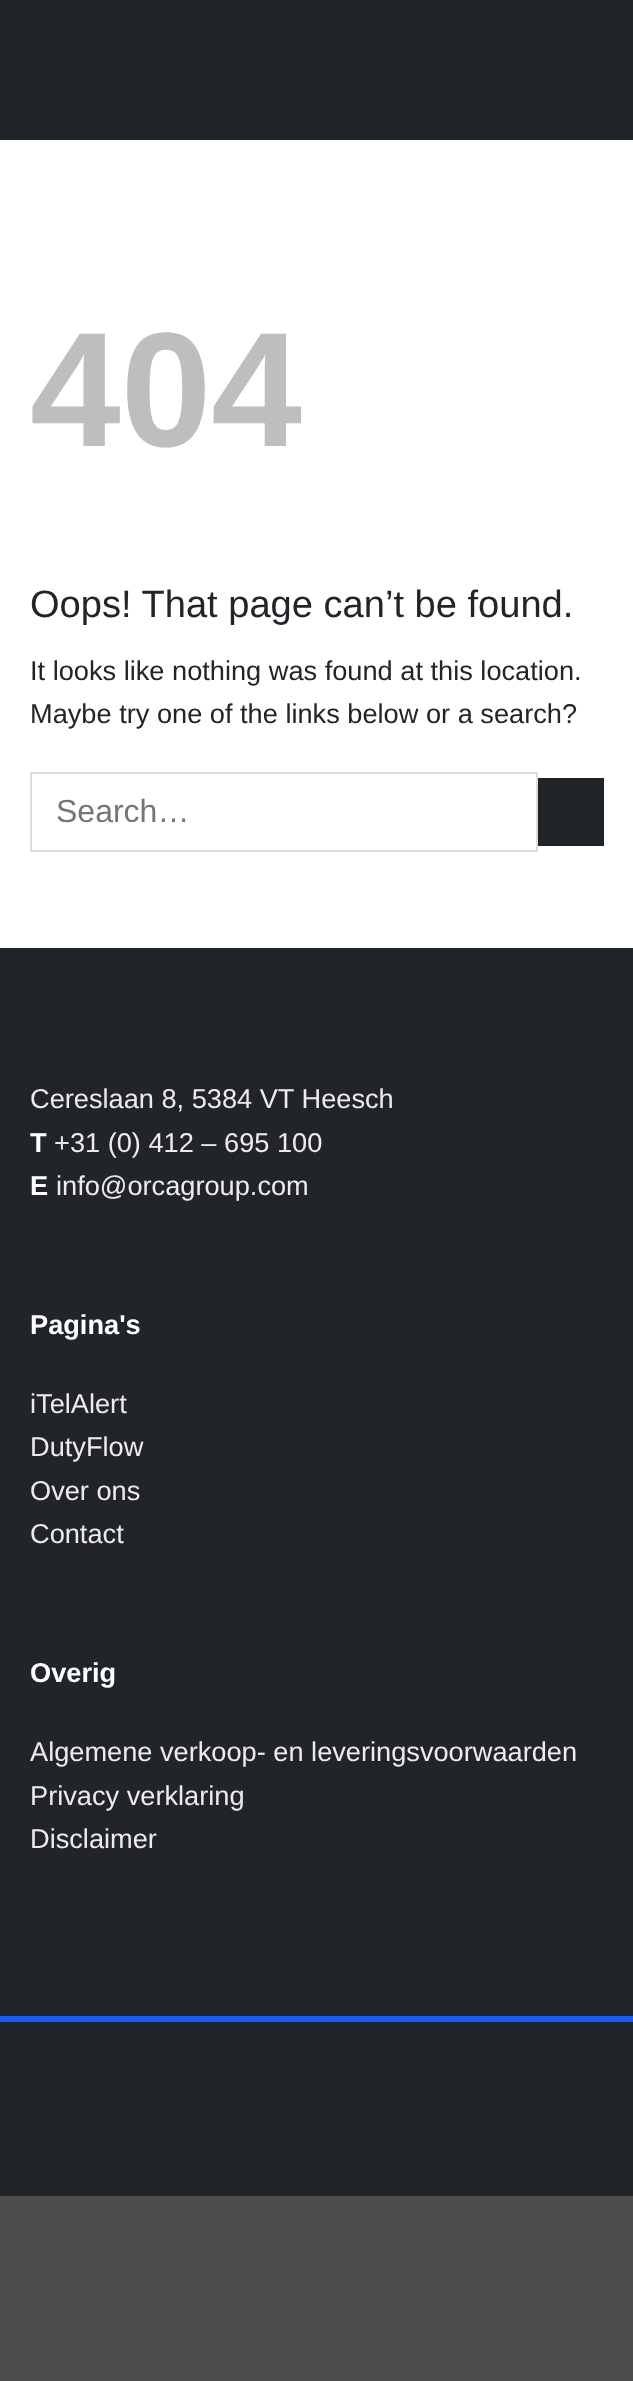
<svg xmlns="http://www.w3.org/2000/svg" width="633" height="2381">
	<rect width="100%" height="100%" fill="#4D4D4D" />
	<rect x="0" y="140" width="633" height="808" fill="#FFFFFF" />
	<rect x="0" y="0" width="633" height="140" fill="#212529" />
	<text x="30" y="446" font-family="Liberation Sans" font-size="163" font-weight="700" fill="#BCBEBF">404</text>
	<text x="30" y="617" font-family="Liberation Sans" font-size="38.1" fill="#212529">Oops! That page can’t be found.</text>
	<g font-family="Liberation Sans" font-size="27.2" fill="#212529">
		<text x="30" y="680">It looks like nothing was found at this location.</text>
		<text x="30" y="723">Maybe try one of the links below or a search?</text>
	</g>
	<rect x="31" y="773" width="506" height="78" fill="none" stroke="#DDDDDD" stroke-width="2" />
	<text x="56" y="822" font-family="Liberation Sans" font-size="32" fill="#757575">Search…</text>
	<rect x="539" y="779" width="64" height="66" fill="#212529" stroke="#1F2327" stroke-width="2" />
	<rect x="0" y="948" width="633" height="1248" fill="#212529" />
	<text x="30" y="1108" font-family="Liberation Sans" font-size="27.2" fill="#EEEBEA">Cereslaan 8, 5384 VT Heesch</text>
	<text x="30" y="1152" font-family="Liberation Sans" font-size="27.2" font-weight="700" fill="#FFFFFF">T</text>
	<text x="54" y="1152" font-family="Liberation Sans" font-size="27.2" fill="#EEEBEA">+31 (0) 412 – 695 100</text>
	<text x="30" y="1195" font-family="Liberation Sans" font-size="27.2" font-weight="700" fill="#FFFFFF">E</text>
	<text x="56" y="1195" font-family="Liberation Sans" font-size="27.2" fill="#EEEBEA">info@orcagroup.com</text>
	<text x="30" y="1334" font-family="Liberation Sans" font-size="27.2" font-weight="700" fill="#FFFFFF">Pagina's</text>
	<g font-family="Liberation Sans" font-size="27.2" fill="#EEEBEA">
		<text x="30" y="1413">iTelAlert</text>
		<text x="30" y="1456">DutyFlow</text>
		<text x="30" y="1500">Over ons</text>
		<text x="30" y="1543">Contact</text>
	</g>
	<text x="30" y="1682" font-family="Liberation Sans" font-size="27.2" font-weight="700" fill="#FFFFFF">Overig</text>
	<g font-family="Liberation Sans" font-size="27.2" fill="#EEEBEA">
		<text x="30" y="1761">Algemene verkoop- en leveringsvoorwaarden</text>
		<text x="30" y="1805">Privacy verklaring</text>
		<text x="30" y="1848">Disclaimer</text>
	</g>
	<rect x="0" y="2016" width="633" height="6" fill="#185CFF" />
</svg>
